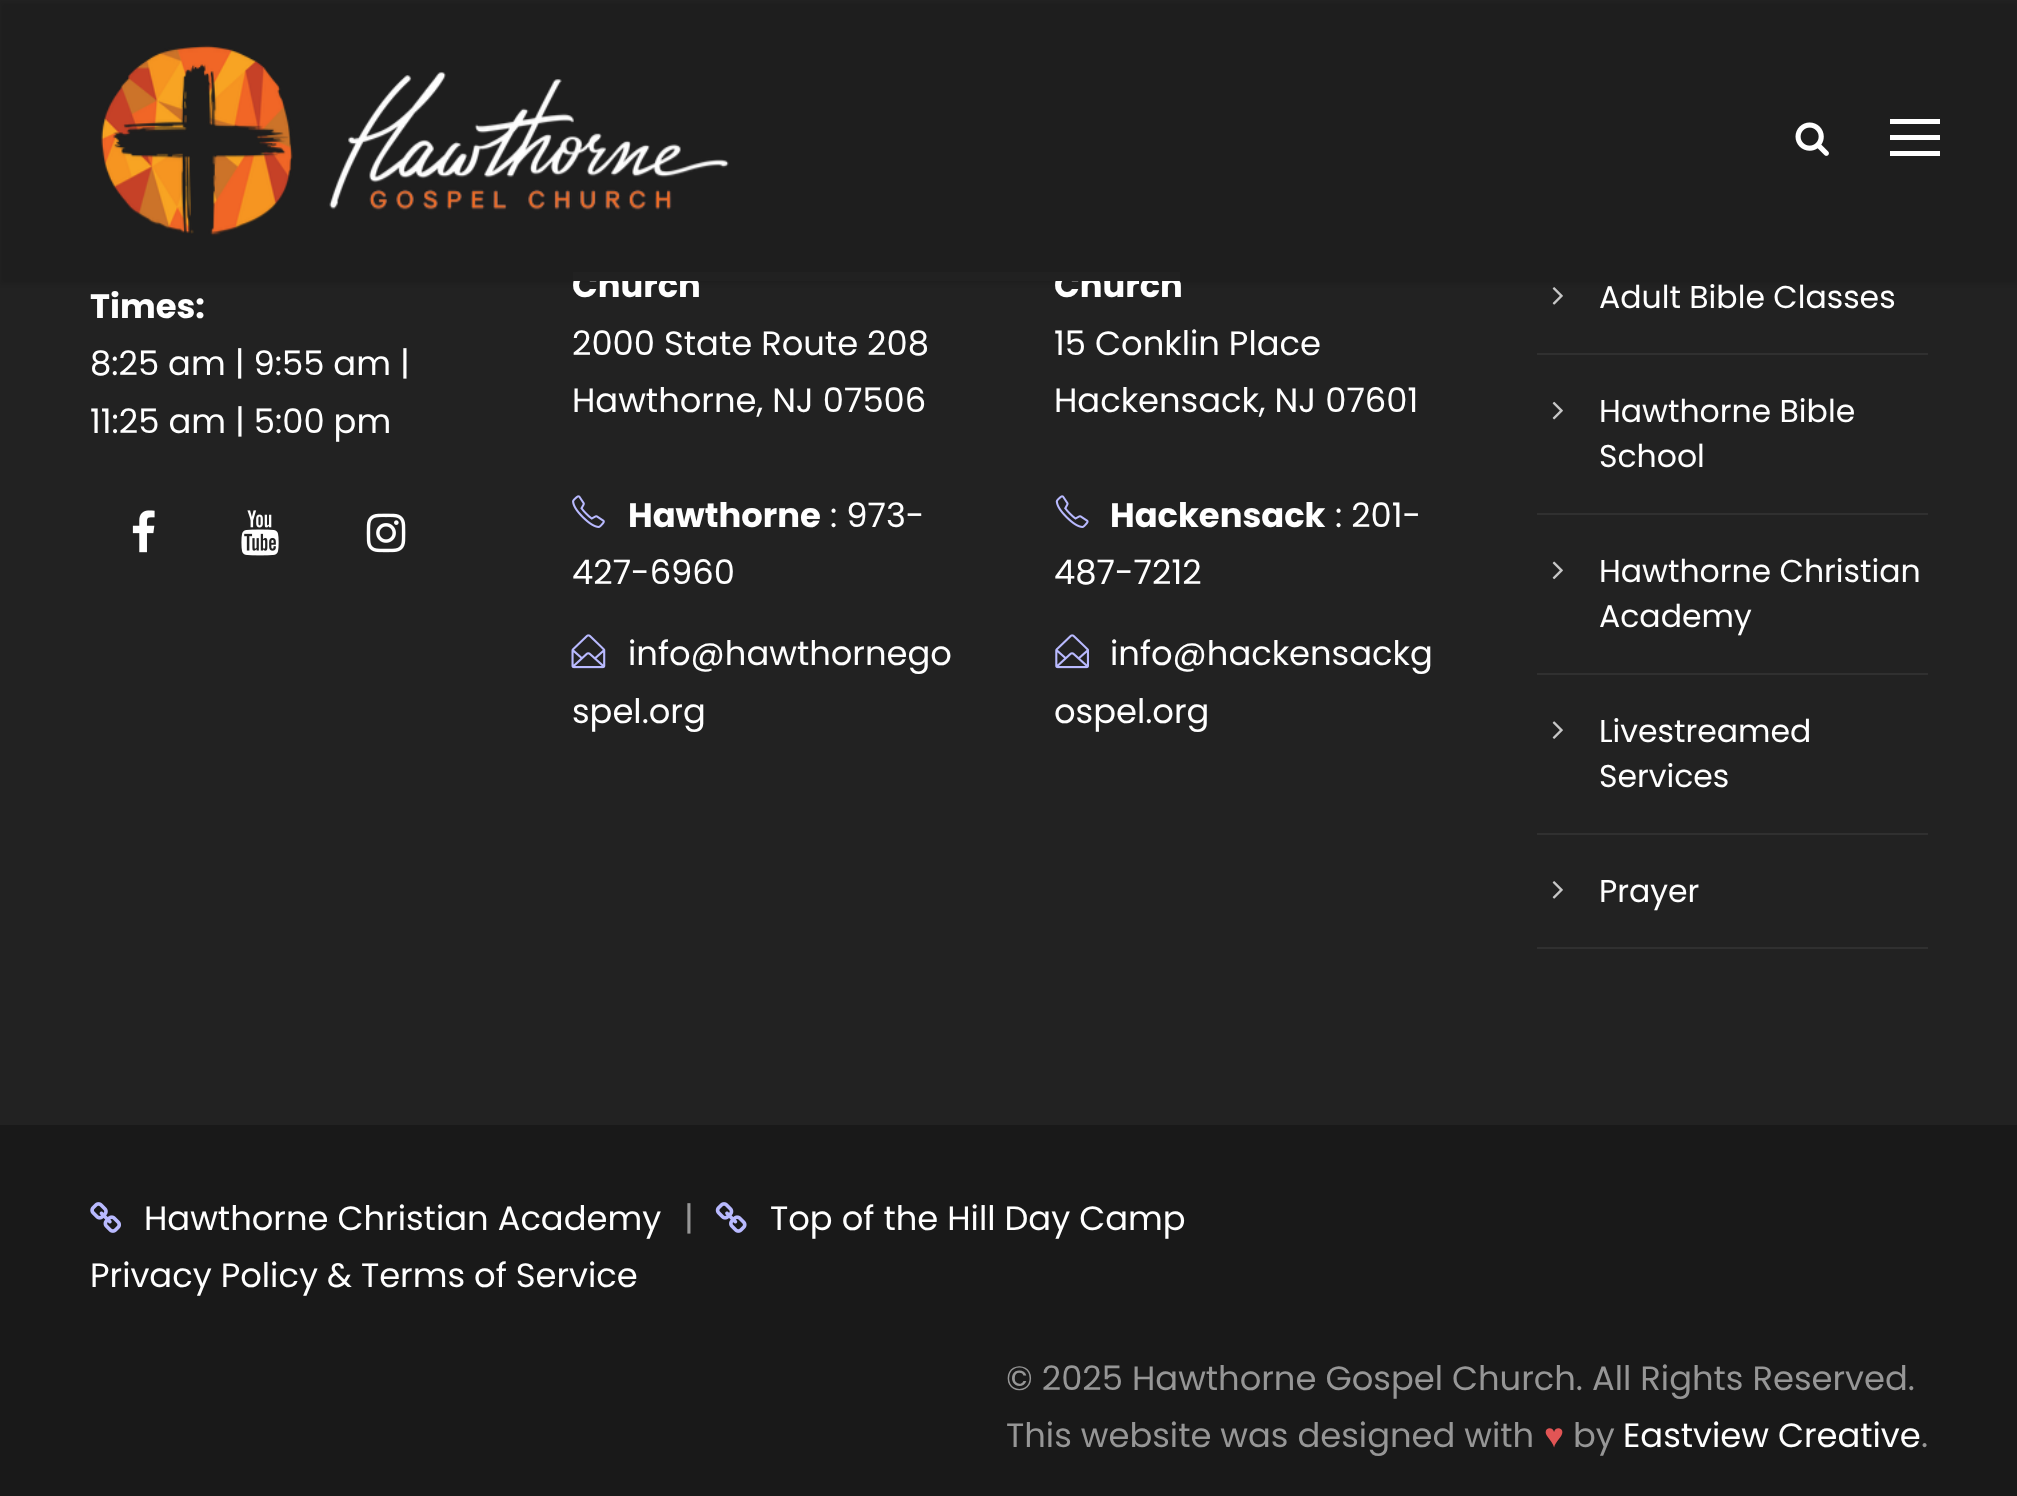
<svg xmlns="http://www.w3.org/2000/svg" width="2017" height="1496">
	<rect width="100%" height="100%" fill="#222222" />
	<image x="1552" y="287" width="11" height="18" href="assets/img10.png" />
	<rect x="0" y="2" width="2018" height="282" fill="#000000" fill-opacity="0.1" filter="blur(2px)" />
	<g font-family="Poppins" font-size="33.75" font-weight="700" fill="#FFFFFF">
		<text x="572" y="297">Church</text>
		<text x="1054" y="297">Church</text>
	</g>
	<rect x="573" y="272" width="607" height="9" fill="#212121" />
	<image x="101" y="45" width="628" height="191" href="assets/img1.png" />
	<image x="1795" y="122" width="34" height="34" href="assets/img2.png" />
	<rect x="1890" y="119" width="50" height="5" fill="#FFFFFF" />
	<rect x="1890" y="135" width="50" height="5" fill="#FFFFFF" />
	<rect x="1890" y="151" width="50" height="5" fill="#FFFFFF" />
	<text x="90" y="318" font-family="Poppins" font-size="33.75" font-weight="700" fill="#FFFFFF">Times:</text>
	<g font-family="Poppins" font-size="33.75" fill="#FFFFFF">
		<text x="90" y="375">8:25 am | 9:55 am |</text>
		<text x="90" y="433">11:25 am | 5:00 pm</text>
	</g>
	<image x="132" y="510" width="23" height="43" href="assets/img3.png" />
	<image x="241" y="510" width="38" height="46" href="assets/img4.png" />
	<image x="366" y="513" width="40" height="40" href="assets/img5.png" />
	<g font-family="Poppins" font-size="33.75" fill="#FFFFFF">
		<text x="572" y="355">2000 State Route 208</text>
		<text x="572" y="412">Hawthorne, NJ 07506</text>
	</g>
	<image x="572" y="495" width="33" height="33" href="assets/img6.png" />
	<text x="628" y="527" font-family="Poppins" font-size="33.75" font-weight="700" fill="#FFFFFF">Hawthorne</text>
	<g font-family="Poppins" font-size="33.75" fill="#FFFFFF">
		<text x="830" y="527">: 973-</text>
		<text x="572" y="584">427-6960</text>
	</g>
	<image x="571" y="634" width="35" height="35" href="assets/img7.png" />
	<g font-family="Poppins" font-size="33.75" fill="#FFFFFF">
		<text x="628" y="665">info@hawthornego</text>
		<text x="572" y="723">spel.org</text>
		<text x="1054" y="355">15 Conklin Place</text>
		<text x="1054" y="412">Hackensack, NJ 07601</text>
	</g>
	<image x="1055" y="495" width="34" height="33" href="assets/img8.png" />
	<text x="1110" y="527" font-family="Poppins" font-size="33.75" font-weight="700" fill="#FFFFFF">Hackensack</text>
	<g font-family="Poppins" font-size="33.75" fill="#FFFFFF">
		<text x="1335" y="527">: 201-</text>
		<text x="1054" y="584">487-7212</text>
	</g>
	<image x="1055" y="634" width="34" height="35" href="assets/img9.png" />
	<g font-family="Poppins" font-size="33.75" fill="#FFFFFF">
		<text x="1110" y="665">info@hackensackg</text>
		<text x="1054" y="723">ospel.org</text>
	</g>
	<rect x="1537" y="353" width="391" height="2" fill="#303030" />
	<text x="1599" y="308" font-family="Poppins" font-size="31.5" fill="#FFFFFF">Adult Bible Classes</text>
	<rect x="1537" y="513" width="391" height="2" fill="#303030" />
	<image x="1552" y="401" width="11" height="19" href="assets/img11.png" />
	<g font-family="Poppins" font-size="31.5" fill="#FFFFFF">
		<text x="1599" y="422">Hawthorne Bible</text>
		<text x="1599" y="467">School</text>
	</g>
	<rect x="1537" y="673" width="391" height="2" fill="#303030" />
	<image x="1552" y="561" width="11" height="19" href="assets/img12.png" />
	<g font-family="Poppins" font-size="31.5" fill="#FFFFFF">
		<text x="1599" y="582">Hawthorne Christian</text>
		<text x="1599" y="627">Academy</text>
	</g>
	<rect x="1537" y="833" width="391" height="2" fill="#303030" />
	<image x="1552" y="721" width="11" height="18" href="assets/img13.png" />
	<g font-family="Poppins" font-size="31.5" fill="#FFFFFF">
		<text x="1599" y="742">Livestreamed</text>
		<text x="1599" y="787">Services</text>
	</g>
	<rect x="1537" y="947" width="391" height="2" fill="#303030" />
	<image x="1552" y="881" width="11" height="18" href="assets/img10.png" />
	<text x="1599" y="902" font-family="Poppins" font-size="31.5" fill="#FFFFFF">Prayer</text>
	<rect x="0" y="1125" width="2017" height="371" fill="#191919" />
	<image x="90" y="1202" width="31" height="31" href="assets/img14.png" />
	<text x="144" y="1230" font-family="Poppins" font-size="33.75" fill="#FFFFFF">Hawthorne Christian Academy</text>
	<text x="684" y="1230" font-family="Poppins" font-size="33.75" fill="#969696">|</text>
	<image x="715" y="1202" width="32" height="31" href="assets/img15.png" />
	<g font-family="Poppins" font-size="33.75" fill="#FFFFFF">
		<text x="770" y="1230">Top of the Hill Day Camp</text>
		<text x="90" y="1287">Privacy Policy &amp; Terms of Service</text>
	</g>
	<g font-family="Poppins" font-size="33.75" fill="#969696">
		<text x="1006" y="1390">© 2025 Hawthorne Gospel Church. All Rights Reserved.</text>
		<text x="1006" y="1447">This website was designed with</text>
	</g>
	<text x="1544" y="1447" font-family="Liberation Sans" font-size="33.75" fill="#E25555">♥</text>
	<text x="1573" y="1447" font-family="Poppins" font-size="33.75" fill="#969696">by</text>
	<text x="1623" y="1447" font-family="Poppins" font-size="33.75" fill="#FFFFFF">Eastview Creative</text>
	<text x="1921" y="1447" font-family="Poppins" font-size="33.75" fill="#969696">.</text>
</svg>
